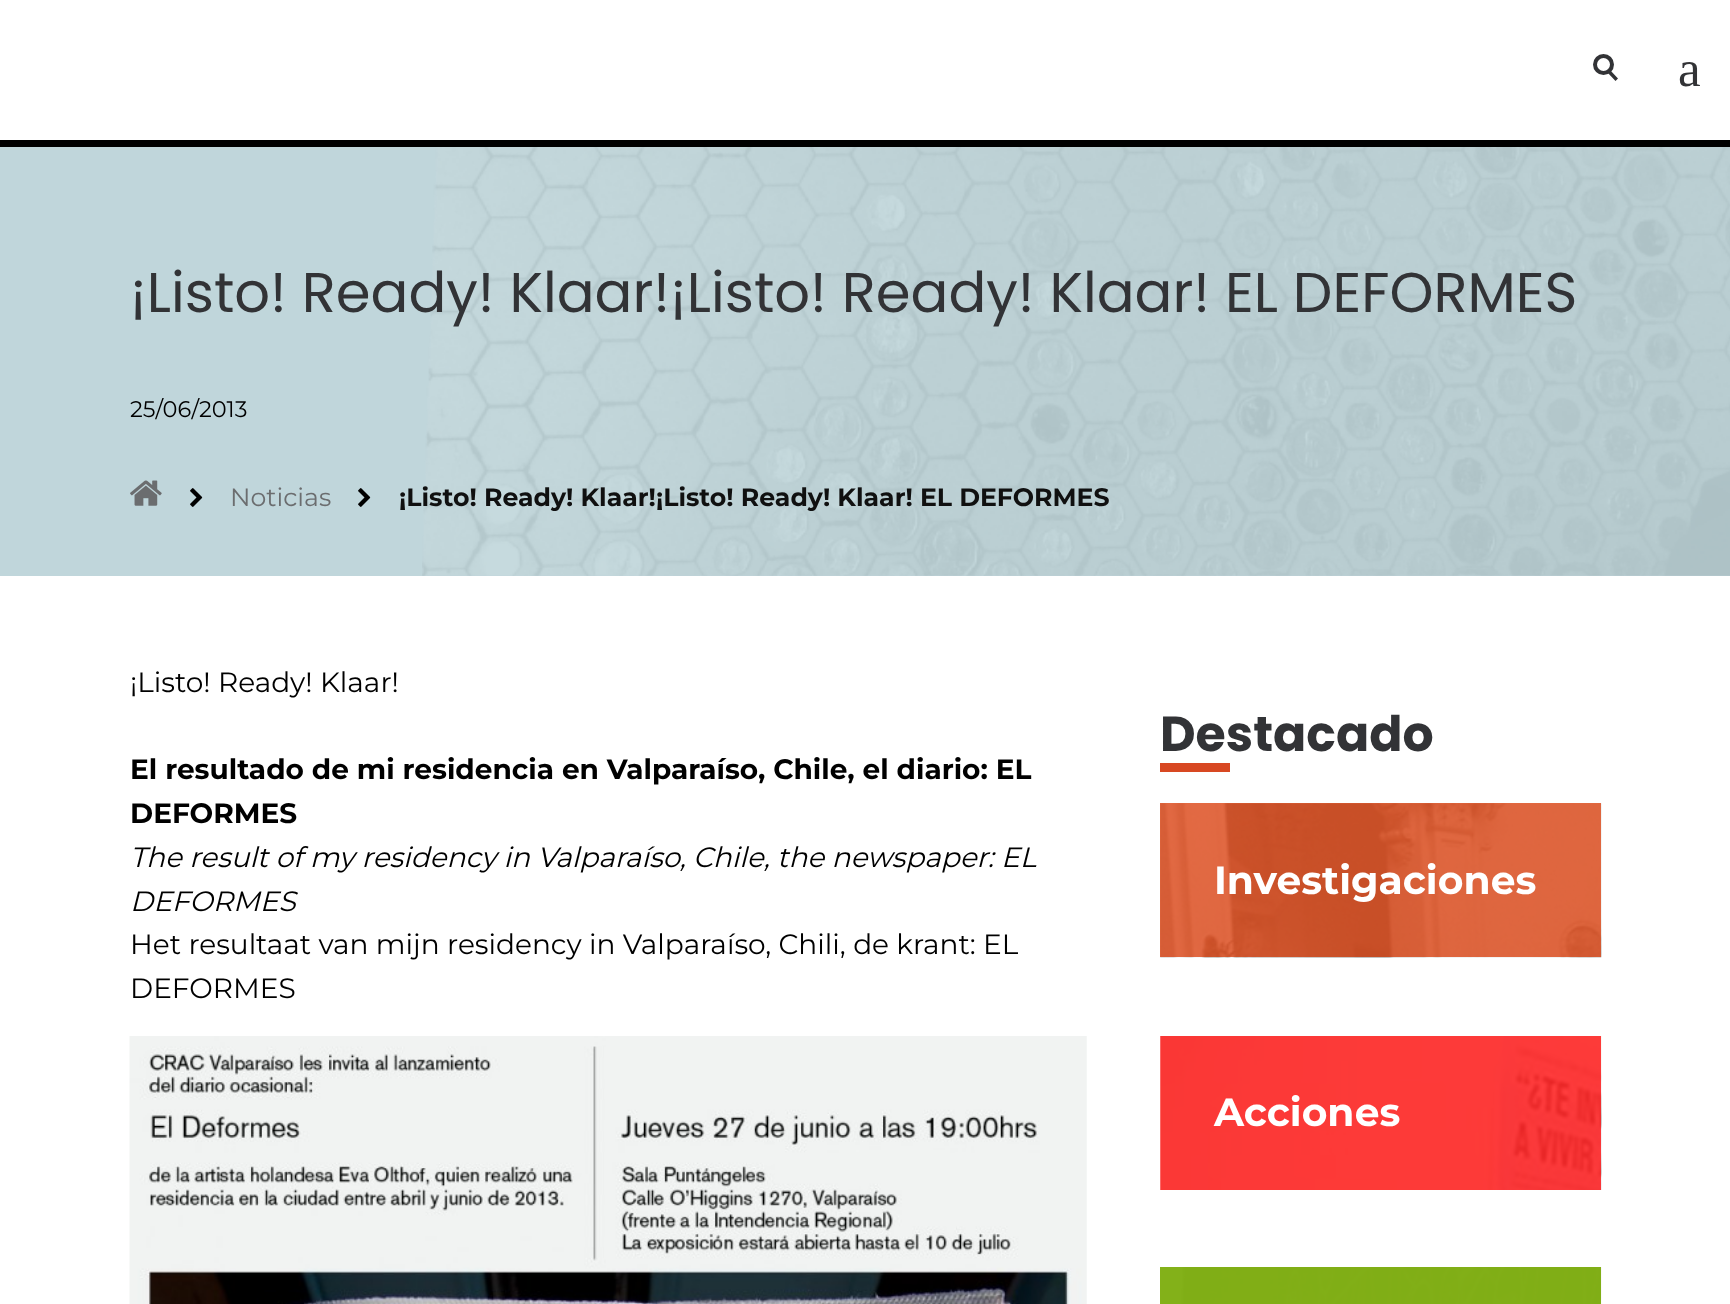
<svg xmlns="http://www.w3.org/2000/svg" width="1730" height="1304">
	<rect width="100%" height="100%" fill="#FFFFFF" />
	<rect x="1160" y="1267" width="441" height="37" fill="#83B119" />
	<rect x="1160" y="803" width="441" height="154" fill="#E56C45" />
	<circle cx="1603.5" cy="64.5" r="8.5" fill="none" stroke="#323336" stroke-width="4" />
	<path d="M1609.5 69.5L1618 78.5L1615.5 81L1607 72Z" fill="#323336" />
	<text x="1678" y="86" font-family="Liberation Serif" font-size="51" fill="#323336">a</text>
	<rect x="0" y="140" width="1730" height="7" fill="#000000" />
	<rect x="0" y="147" width="1730" height="429" fill="#C0D6DB" />
	<image x="422" y="147" width="1308" height="429" href="assets/img1.png" />
	<text x="130" y="312" font-family="Poppins" font-size="56" fill="#323336">¡Listo! Ready! Klaar!¡Listo! Ready! Klaar! EL DEFORMES</text>
	<text x="130" y="417" font-family="Montserrat" font-size="22.5" fill="#000000">25/06/2013</text>
	<image x="130" y="480" width="32" height="26" href="assets/img2.png" />
	<image x="190" y="488" width="13" height="19" href="assets/img3.png" />
	<text x="230" y="506" font-family="Montserrat" font-size="25.2" fill="#6B6D6F">Noticias</text>
	<image x="358" y="488" width="13" height="19" href="assets/img3.png" />
	<text x="399" y="506" font-family="Montserrat" font-size="25.2" font-weight="700" fill="#101010">¡Listo! Ready! Klaar!¡Listo! Ready! Klaar! EL DEFORMES</text>
	<text x="130" y="692" font-family="Montserrat" font-size="28" fill="#000000">¡Listo! Ready! Klaar!</text>
	<g font-family="Montserrat" font-size="28" font-weight="700" fill="#000000">
		<text x="130" y="779">El resultado de mi residencia en Valparaíso, Chile, el diario: EL</text>
		<text x="130" y="823">DEFORMES</text>
	</g>
	<g font-family="Montserrat" font-size="28" font-style="italic" fill="#000000">
		<text x="130" y="867">The result of my residency in Valparaíso, Chile, the newspaper: EL</text>
		<text x="130" y="911">DEFORMES</text>
	</g>
	<g font-family="Montserrat" font-size="28" fill="#000000">
		<text x="130" y="954">Het resultaat van mijn residency in Valparaíso, Chili, de krant: EL</text>
		<text x="130" y="998">DEFORMES</text>
	</g>
	<image x="129" y="1036" width="958" height="268" href="assets/img4.png" />
	<text x="1160" y="751" font-family="Poppins" font-size="49" font-weight="700" fill="#323336">Destacado</text>
	<rect x="1160" y="763" width="70" height="9" fill="#D84822" />
	<image x="1160" y="803" width="442" height="155" href="assets/img5.png" />
	<text x="1214" y="894" font-family="Montserrat" font-size="39.25" font-weight="700" fill="#FFFFFF">Investigaciones</text>
	<image x="1160" y="1036" width="442" height="154" href="assets/img6.png" />
	<text x="1214" y="1126" font-family="Montserrat" font-size="39.25" font-weight="700" fill="#FFFFFF">Acciones</text>
	<image x="1181" y="1267" width="421" height="37" href="assets/img7.png" />
</svg>
